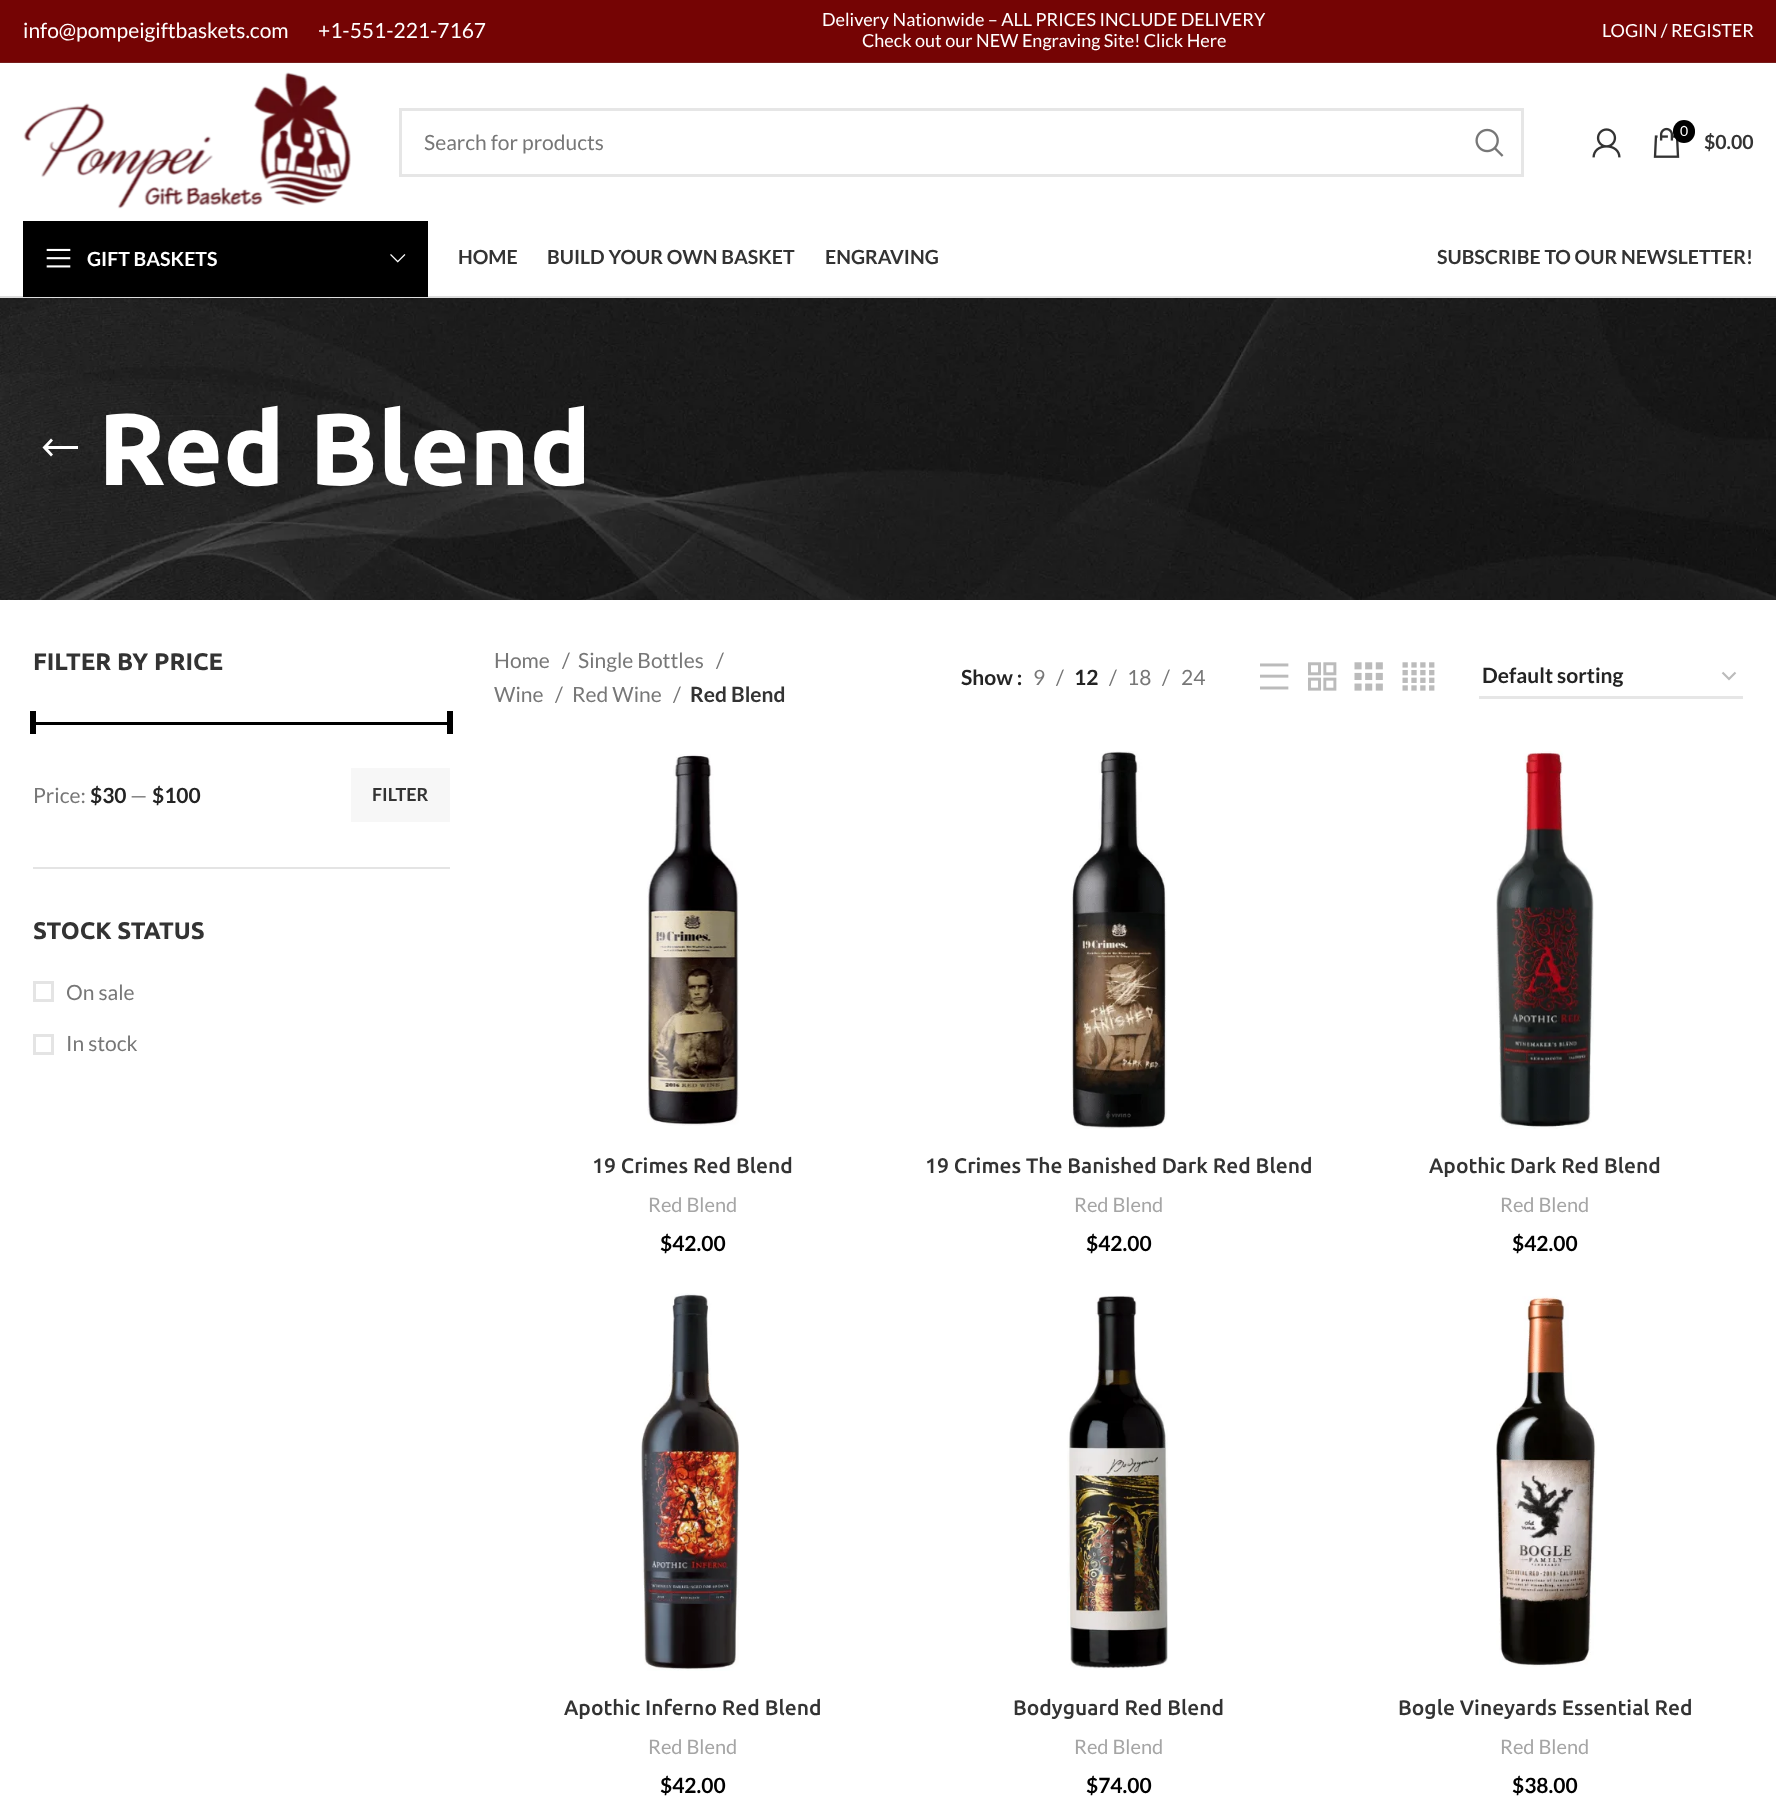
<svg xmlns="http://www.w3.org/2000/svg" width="1776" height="1800">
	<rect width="100%" height="100%" fill="#FFFFFF" />
	<rect x="0" y="0" width="1776" height="62" fill="#750404" />
	<rect x="0" y="62" width="1776" height="1" fill="#771D1B" />
	<g font-family="Lato" font-size="21" fill="#FFFFFF">
		<text x="23" y="38">info@pompeigiftbaskets.com</text>
		<text x="318" y="38">+1-551-221-7167</text>
	</g>
	<g font-family="Lato" font-size="18" fill="#FFFFFF">
		<text x="822" y="26">Delivery Nationwide – ALL PRICES INCLUDE DELIVERY</text>
		<text x="862" y="47">Check out our NEW Engraving Site! Click Here</text>
		<text x="1602" y="37">LOGIN / REGISTER</text>
	</g>
	<image x="23" y="72" width="328" height="137" href="assets/img1.png" />
	<rect x="400.5" y="109.5" width="1122" height="66" fill="none" stroke="#E6E6E6" stroke-width="3" />
	<text x="424" y="150" font-family="Lato" font-size="21" fill="#777777">Search for products</text>
	<image x="1475" y="128" width="29" height="29" href="assets/img2.png" />
	<image x="1592" y="128" width="29" height="30" href="assets/img3.png" />
	<image x="1653" y="127" width="27" height="31" href="assets/img4.png" />
	<rect x="1673" y="120" width="22" height="23" rx="11" fill="#000000" />
	<text x="1680" y="136" font-family="Lato" font-size="14" fill="#FFFFFF">0</text>
	<text x="1704" y="149" font-family="Lato" font-size="19.5" font-weight="700" fill="#333333">$0.00</text>
	<rect x="0" y="296" width="1776" height="2" fill="#DDDDDD" />
	<rect x="23" y="221" width="405" height="76" fill="#000000" />
	<image x="46" y="248" width="25" height="20" href="assets/img5.png" />
	<text x="87" y="266" font-family="Lato" font-size="19.5" font-weight="700" fill="#FFFFFF">GIFT BASKETS</text>
	<image x="390" y="254" width="16" height="9" href="assets/img6.png" />
	<g font-family="Lato" font-size="19.5" font-weight="700" fill="#333333">
		<text x="458" y="264">HOME</text>
		<text x="547" y="264">BUILD YOUR OWN BASKET</text>
		<text x="825" y="264">ENGRAVING</text>
		<text x="1437" y="264">SUBSCRIBE TO OUR NEWSLETTER!</text>
	</g>
	<image x="0" y="298" width="1776" height="302" href="assets/img7.png" />
	<path d="M53 454.5L48 449H78V446H48L53 440.5L51 438.5L42.5 447.5L51 456.5Z" fill="#FFFFFF" />
	<text x="98" y="485" font-family="Ubuntu" font-size="102" font-weight="700" fill="#FFFFFF">Red Blend</text>
	<rect x="33" y="867" width="417" height="2" fill="#E4E4E4" />
	<text x="33" y="670" font-family="Ubuntu" font-size="24" font-weight="700" fill="#333333">FILTER BY PRICE</text>
	<rect x="33" y="722" width="417" height="3" fill="#000000" />
	<rect x="30" y="711" width="6" height="23" fill="#000000" />
	<rect x="447" y="711" width="6" height="23" fill="#000000" />
	<text x="33" y="803" font-family="Lato" font-size="21" fill="#777777">Price:</text>
	<text x="90" y="803" font-family="Lato" font-size="21" font-weight="700" fill="#242424">$30</text>
	<text x="130" y="803" font-family="Lato" font-size="21" fill="#777777">—</text>
	<text x="152" y="803" font-family="Lato" font-size="21" font-weight="700" fill="#242424">$100</text>
	<rect x="351" y="768" width="99" height="54" fill="#F7F7F7" />
	<text x="372" y="801" font-family="Lato" font-size="18" font-weight="700" fill="#333333">FILTER</text>
	<text x="33" y="939" font-family="Ubuntu" font-size="24" font-weight="700" fill="#333333">STOCK STATUS</text>
	<rect x="34.5" y="982.5" width="18" height="18" fill="none" stroke="#E4E4E4" stroke-width="3" />
	<text x="66" y="1000" font-family="Lato" font-size="21" fill="#777777">On sale</text>
	<rect x="34.5" y="1035.5" width="18" height="18" fill="none" stroke="#E4E4E4" stroke-width="3" />
	<g font-family="Lato" font-size="21" fill="#777777">
		<text x="66" y="1051">In stock</text>
		<text x="494" y="668">Home</text>
		<text x="562" y="668">/</text>
		<text x="578" y="668">Single Bottles</text>
		<text x="716" y="668">/</text>
		<text x="494" y="702">Wine</text>
		<text x="555" y="702">/</text>
		<text x="572" y="702">Red Wine</text>
		<text x="673" y="702">/</text>
	</g>
	<text x="690" y="702" font-family="Lato" font-size="21" font-weight="700" fill="#333333">Red Blend</text>
	<text x="961" y="685" font-family="Lato" font-size="21" font-weight="700" fill="#242424">Show :</text>
	<g font-family="Lato" font-size="21" fill="#777777">
		<text x="1033" y="685">9</text>
		<text x="1056" y="685">/</text>
	</g>
	<text x="1074" y="685" font-family="Lato" font-size="21" font-weight="700" fill="#242424">12</text>
	<g font-family="Lato" font-size="21" fill="#777777">
		<text x="1109" y="685">/</text>
		<text x="1127" y="685">18</text>
		<text x="1162" y="685">/</text>
		<text x="1181" y="685">24</text>
	</g>
	<image x="1260" y="663" width="29" height="27" href="assets/img8.png" />
	<image x="1308" y="662" width="29" height="29" href="assets/img9.png" />
	<image x="1354" y="662" width="29" height="29" href="assets/img10.png" />
	<image x="1402" y="662" width="33" height="29" href="assets/img11.png" />
	<path d="M1722.5 672.5L1729 679L1735.5 672.5" fill="none" stroke="#BBBBBB" stroke-width="2.2" />
	<rect x="1479" y="696" width="264" height="3" fill="#E6E6E6" />
	<text x="1482" y="683" font-family="Lato" font-size="21" font-weight="700" fill="#242424">Default sorting</text>
	<image x="647" y="754" width="92" height="372" href="assets/img12.png" />
	<text x="592" y="1173" font-family="Ubuntu" font-size="21" font-weight="500" fill="#333333">19 Crimes Red Blend</text>
	<text x="648" y="1212" font-family="Lato" font-size="20" fill="#A5A5A5">Red Blend</text>
	<text x="660" y="1251" font-family="Lato" font-size="21" font-weight="700" fill="#000000">$42.00</text>
	<image x="1070" y="751" width="97" height="378" href="assets/img13.png" />
	<text x="925" y="1173" font-family="Ubuntu" font-size="21" font-weight="500" fill="#333333">19 Crimes The Banished Dark Red Blend</text>
	<text x="1074" y="1212" font-family="Lato" font-size="20" fill="#A5A5A5">Red Blend</text>
	<text x="1086" y="1251" font-family="Lato" font-size="21" font-weight="700" fill="#000000">$42.00</text>
	<image x="1496" y="750" width="98" height="379" href="assets/img14.png" />
	<text x="1429" y="1173" font-family="Ubuntu" font-size="21" font-weight="500" fill="#333333">Apothic Dark Red Blend</text>
	<text x="1500" y="1212" font-family="Lato" font-size="20" fill="#A5A5A5">Red Blend</text>
	<text x="1512" y="1251" font-family="Lato" font-size="21" font-weight="700" fill="#000000">$42.00</text>
	<image x="641" y="1293" width="99" height="378" href="assets/img15.png" />
	<text x="564" y="1715" font-family="Ubuntu" font-size="21" font-weight="500" fill="#333333">Apothic Inferno Red Blend</text>
	<text x="648" y="1754" font-family="Lato" font-size="20" fill="#A5A5A5">Red Blend</text>
	<text x="660" y="1793" font-family="Lato" font-size="21" font-weight="700" fill="#000000">$42.00</text>
	<image x="1067" y="1295" width="101" height="375" href="assets/img16.png" />
	<text x="1013" y="1715" font-family="Ubuntu" font-size="21" font-weight="500" fill="#333333">Bodyguard Red Blend</text>
	<text x="1074" y="1754" font-family="Lato" font-size="20" fill="#A5A5A5">Red Blend</text>
	<text x="1086" y="1793" font-family="Lato" font-size="21" font-weight="700" fill="#000000">$74.00</text>
	<image x="1496" y="1296" width="101" height="371" href="assets/img17.png" />
	<text x="1398" y="1715" font-family="Ubuntu" font-size="21" font-weight="500" fill="#333333">Bogle Vineyards Essential Red</text>
	<text x="1500" y="1754" font-family="Lato" font-size="20" fill="#A5A5A5">Red Blend</text>
	<text x="1512" y="1793" font-family="Lato" font-size="21" font-weight="700" fill="#000000">$38.00</text>
</svg>
